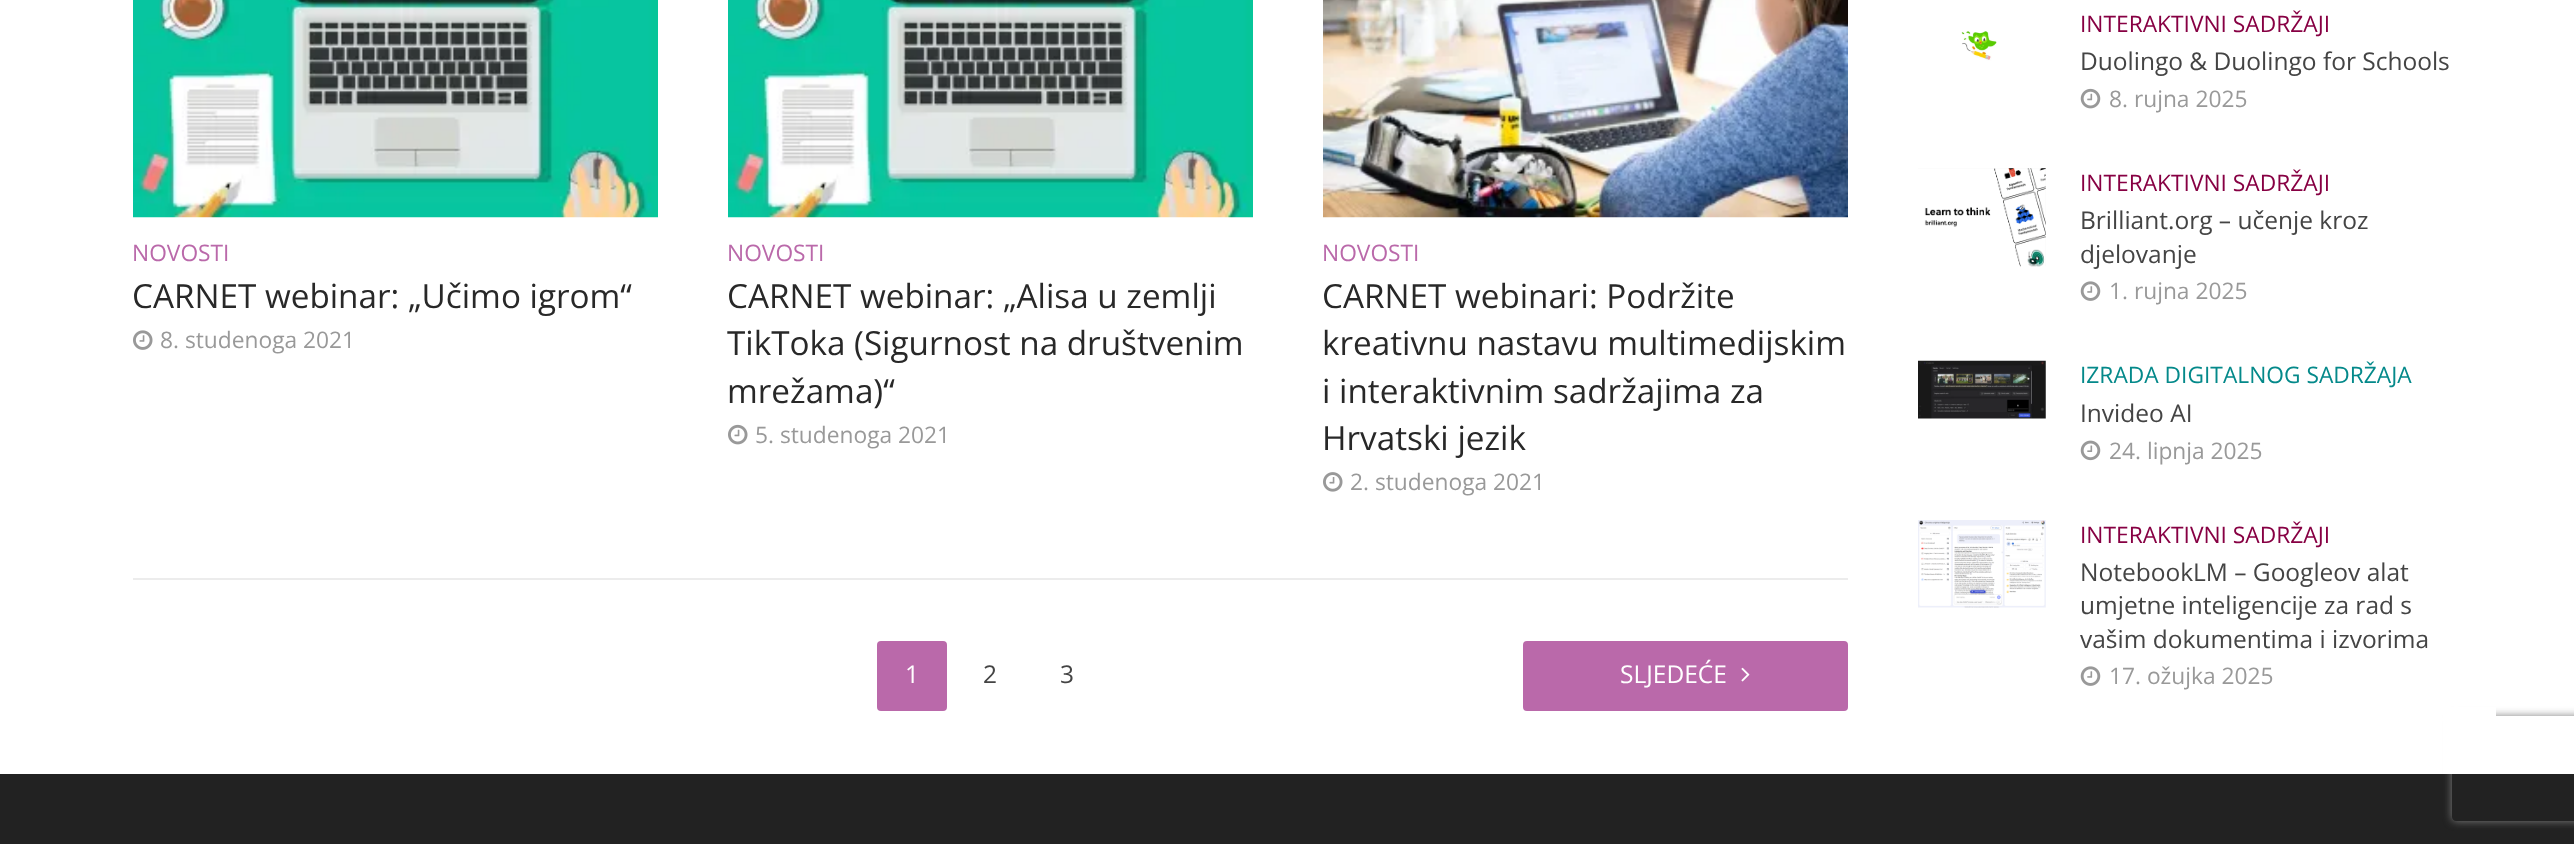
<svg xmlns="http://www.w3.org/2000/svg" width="2574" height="844">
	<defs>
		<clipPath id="clip1"><path d="M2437 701H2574V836H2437ZM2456 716H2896C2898 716 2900 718 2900 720V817C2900 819 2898 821 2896 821H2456C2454 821 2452 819 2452 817V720C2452 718 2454 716 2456 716Z" clip-rule="evenodd" /></clipPath>
	</defs>
	<rect width="100%" height="100%" fill="#FFFFFF" />
	<rect x="0" y="774" width="2574" height="70" fill="#222222" />
	<g clip-path="url(#clip1)">
		<rect x="2452" y="716" width="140" height="105" rx="4" fill="#808080" filter="blur(4.5px)" />
	</g>
	<rect x="2443" y="707" width="53" height="67" fill="#FFFFFF" />
	<image x="133" y="0" width="525" height="218" href="assets/img1.png" />
	<text x="132" y="261" font-family="Open Sans" font-size="22.75" fill="#BA69AA">NOVOSTI</text>
	<text x="132" y="308" font-family="Open Sans" font-size="33.25" fill="#282828">CARNET webinar: „Učimo igrom“</text>
	<image x="133" y="330" width="20" height="20" href="assets/img2.png" />
	<text x="160" y="348" font-family="Open Sans" font-size="22.75" fill="#999999">8. studenoga 2021</text>
	<image x="728" y="0" width="525" height="218" href="assets/img3.png" />
	<text x="727" y="261" font-family="Open Sans" font-size="22.75" fill="#BA69AA">NOVOSTI</text>
	<g font-family="Open Sans" font-size="33.25" fill="#282828">
		<text x="727" y="308">CARNET webinar: „Alisa u zemlji</text>
		<text x="727" y="355">TikToka (Sigurnost na društvenim</text>
		<text x="727" y="403">mrežama)“</text>
	</g>
	<image x="728" y="424" width="20" height="21" href="assets/img4.png" />
	<text x="755" y="443" font-family="Open Sans" font-size="22.75" fill="#999999">5. studenoga 2021</text>
	<image x="1323" y="0" width="525" height="218" href="assets/img5.png" />
	<text x="1322" y="261" font-family="Open Sans" font-size="22.75" fill="#BA69AA">NOVOSTI</text>
	<g font-family="Open Sans" font-size="33.25" fill="#282828">
		<text x="1322" y="308">CARNET webinari: Podržite</text>
		<text x="1322" y="355">kreativnu nastavu multimedijskim</text>
		<text x="1322" y="403">i interaktivnim sadržajima za</text>
		<text x="1322" y="450">Hrvatski jezik</text>
	</g>
	<image x="1323" y="472" width="20" height="20" href="assets/img6.png" />
	<text x="1350" y="490" font-family="Open Sans" font-size="22.75" fill="#999999">2. studenoga 2021</text>
	<rect x="133" y="578" width="1715" height="2" fill="#ECECEC" />
	<rect x="877" y="641" width="70" height="70" rx="4" fill="#BA69AA" />
	<text x="905" y="683" font-family="Open Sans" font-size="24.5" fill="#FFFFFF">1</text>
	<g font-family="Open Sans" font-size="24.5" fill="#444444">
		<text x="983" y="683">2</text>
		<text x="1060" y="683">3</text>
	</g>
	<rect x="1523" y="641" width="325" height="70" rx="4" fill="#BA69AA" />
	<text x="1620" y="683" font-family="Open Sans" font-size="24.5" fill="#FFFFFF">SLJEDEĆE</text>
	<image x="1741" y="667" width="9" height="15" href="assets/img7.png" />
	<image x="1918" y="9" width="128" height="70" href="assets/img8.png" />
	<text x="2080" y="32" font-family="Open Sans" font-size="22.75" fill="#870043">INTERAKTIVNI SADRŽAJI</text>
	<text x="2080" y="70" font-family="Open Sans" font-size="24.5" fill="#444444">Duolingo &amp; Duolingo for Schools</text>
	<image x="2080" y="88" width="21" height="21" href="assets/img9.png" />
	<text x="2109" y="107" font-family="Open Sans" font-size="22.75" fill="#999999">8. rujna 2025</text>
	<rect x="1918" y="168" width="128" height="98" fill="#F2F2F2" />
	<image x="1918" y="168" width="128" height="99" href="assets/img10.png" />
	<text x="2080" y="191" font-family="Open Sans" font-size="22.75" fill="#870043">INTERAKTIVNI SADRŽAJI</text>
	<g font-family="Open Sans" font-size="24.5" fill="#444444">
		<text x="2080" y="229">Brilliant.org – učenje kroz</text>
		<text x="2080" y="263">djelovanje</text>
	</g>
	<image x="2080" y="281" width="21" height="20" href="assets/img11.png" />
	<text x="2109" y="299" font-family="Open Sans" font-size="22.75" fill="#999999">1. rujna 2025</text>
	<image x="1918" y="360" width="128" height="59" href="assets/img12.png" />
	<text x="2080" y="383" font-family="Open Sans" font-size="22.75" fill="#04898A">IZRADA DIGITALNOG SADRŽAJA</text>
	<text x="2080" y="422" font-family="Open Sans" font-size="24.5" fill="#444444">Invideo AI</text>
	<image x="2080" y="440" width="21" height="21" href="assets/img13.png" />
	<text x="2109" y="459" font-family="Open Sans" font-size="22.75" fill="#999999">24. lipnja 2025</text>
	<image x="1918" y="520" width="128" height="88" href="assets/img14.png" />
	<text x="2080" y="543" font-family="Open Sans" font-size="22.75" fill="#870043">INTERAKTIVNI SADRŽAJI</text>
	<g font-family="Open Sans" font-size="24.5" fill="#444444">
		<text x="2080" y="581">NotebookLM – Googleov alat</text>
		<text x="2080" y="614">umjetne inteligencije za rad s</text>
		<text x="2080" y="648">vašim dokumentima i izvorima</text>
	</g>
	<image x="2080" y="666" width="21" height="20" href="assets/img11.png" />
	<text x="2109" y="684" font-family="Open Sans" font-size="22.75" fill="#999999">17. ožujka 2025</text>
</svg>
